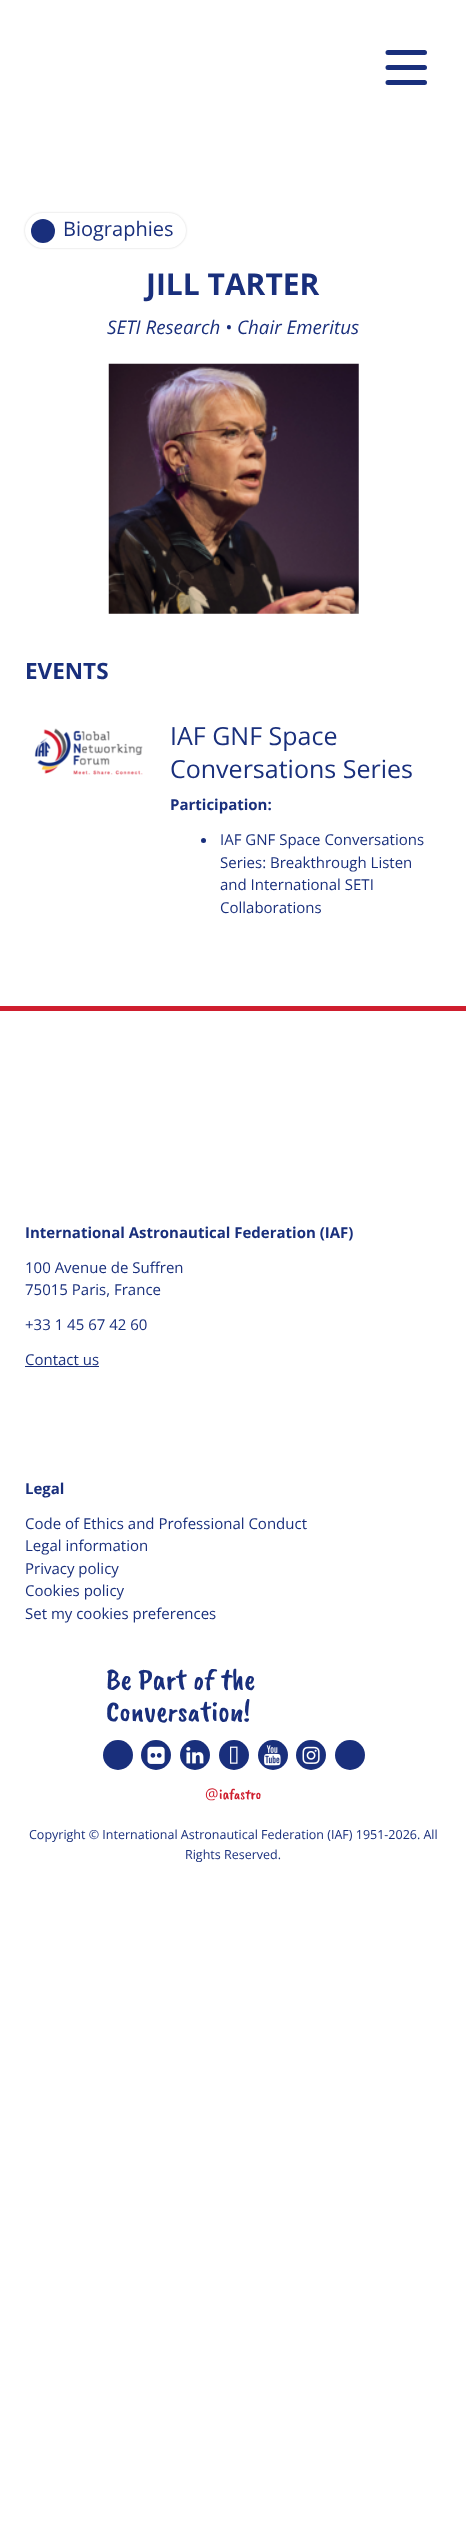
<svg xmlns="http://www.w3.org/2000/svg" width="466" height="2533">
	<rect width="100%" height="100%" fill="#FFFFFF" />
	<path d="M388 52.5H424.5M388 67.5H424.5M388 82.5H424.5" fill="none" stroke="#192F7C" stroke-width="5" stroke-linecap="round" />
	<rect x="25" y="213" width="161" height="35" rx="17.5" fill="#000000" fill-opacity="0.16" filter="blur(1px)" />
	<rect x="25" y="213" width="161" height="35" rx="17.5" fill="#FFFFFF" />
	<circle cx="43" cy="231" r="12" fill="#192F7C" />
	<text x="63" y="236" font-family="Open Sans" font-size="20" fill="#192F7C">Biographies</text>
	<text x="146" y="295" font-family="Open Sans" font-size="30" font-weight="700" fill="#192F7C">JILL TARTER</text>
	<text x="107" y="334" font-family="Open Sans" font-size="18.75" font-style="italic" fill="#192F7C">SETI Research • Chair Emeritus</text>
	<image x="108" y="363" width="251" height="251" href="assets/img1.png" />
	<text x="25" y="679" font-family="Open Sans" font-size="22.5" font-weight="700" fill="#192F7C">EVENTS</text>
	<image x="34" y="728" width="109" height="47" href="assets/img2.png" />
	<g font-family="Open Sans" font-size="25" fill="#192F7C">
		<text x="170" y="745">IAF GNF Space</text>
		<text x="170" y="778">Conversations Series</text>
	</g>
	<text x="170" y="810" font-family="Open Sans" font-size="15" font-weight="700" fill="#192F7C">Participation:</text>
	<circle cx="203.5" cy="840.5" r="2.5" fill="#192F7C" />
	<g font-family="Open Sans" font-size="15" fill="#192F7C">
		<text x="220" y="845">IAF GNF Space Conversations</text>
		<text x="220" y="868">Series: Breakthrough Listen</text>
		<text x="220" y="890">and International SETI</text>
		<text x="220" y="913">Collaborations</text>
	</g>
	<rect x="0" y="1006" width="466" height="5" fill="#CF1E2E" />
	<text x="25" y="1238" font-family="Open Sans" font-size="15" font-weight="700" fill="#192F7C">International Astronautical Federation (IAF)</text>
	<g font-family="Open Sans" font-size="15" fill="#192F7C">
		<text x="25" y="1273">100 Avenue de Suffren</text>
		<text x="25" y="1295">75015 Paris, France</text>
		<text x="25" y="1330">+33 1 45 67 42 60</text>
		<text x="25" y="1365">Contact us</text>
	</g>
	<rect x="25" y="1366" width="74" height="1" fill="#192F7C" />
	<text x="25" y="1494" font-family="Open Sans" font-size="15" font-weight="700" fill="#192F7C">Legal</text>
	<g font-family="Open Sans" font-size="15" fill="#192F7C">
		<text x="25" y="1529">Code of Ethics and Professional Conduct</text>
		<text x="25" y="1551">Legal information</text>
		<text x="25" y="1574">Privacy policy</text>
		<text x="25" y="1596">Cookies policy</text>
		<text x="25" y="1619">Set my cookies preferences</text>
	</g>
	<g font-family="Caveat Brush" font-size="30" fill="#192F7C">
		<text x="106" y="1689">Be Part of the</text>
		<text x="106" y="1721">Conversation!</text>
	</g>
	<circle cx="118" cy="1755" r="15" fill="#192F7C" />
	<circle cx="156" cy="1755" r="15" fill="#192F7C" />
	<image x="147" y="1746" width="18" height="18" href="assets/img3.png" />
	<circle cx="195" cy="1755" r="15" fill="#192F7C" />
	<image x="186" y="1747" width="18" height="17" href="assets/img4.png" />
	<circle cx="234" cy="1755" r="15" fill="#192F7C" />
	<image x="230" y="1746" width="8" height="18" href="assets/img5.png" />
	<circle cx="273" cy="1755" r="15" fill="#192F7C" />
	<image x="264" y="1745" width="17" height="21" href="assets/img6.png" />
	<circle cx="311" cy="1755" r="15" fill="#192F7C" />
	<image x="302" y="1746" width="18" height="18" href="assets/img7.png" />
	<circle cx="350" cy="1755" r="15" fill="#192F7C" />
	<text x="205" y="1799" font-family="Open Sans" font-size="15" fill="#CF1E2E">@</text>
	<text x="219" y="1799" font-family="Caveat Brush" font-size="15" fill="#CF1E2E">iafastro</text>
	<g font-family="Open Sans" font-size="12.5" fill="#192F7C">
		<text x="29" y="1839">Copyright © International Astronautical Federation (IAF) 1951-2026. All</text>
		<text x="185" y="1859">Rights Reserved.</text>
	</g>
</svg>
